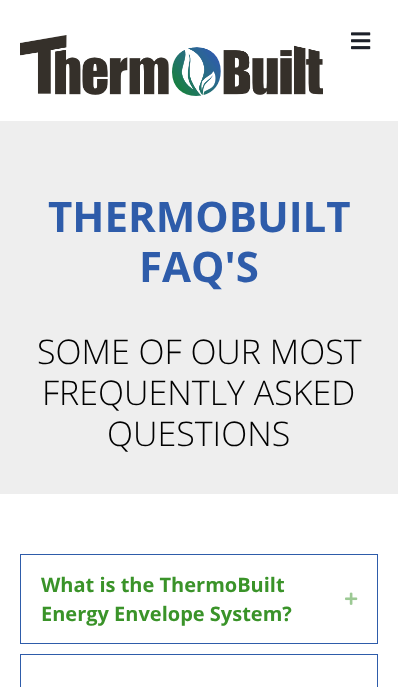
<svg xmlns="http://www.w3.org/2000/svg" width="398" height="687">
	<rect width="100%" height="100%" fill="#FFFFFF" />
	<image x="20" y="35" width="303" height="61" href="assets/img1.png" />
	<image x="351" y="32" width="20" height="18" href="assets/img2.png" />
	<rect x="0" y="121" width="398" height="373" fill="#EEEEEE" />
	<g font-family="Open Sans" font-size="42" font-weight="700" fill="#2E5CAA">
		<text x="48" y="232">THERMOBUILT</text>
		<text x="139" y="282">FAQ'S</text>
	</g>
	<g font-family="Open Sans" font-size="34" font-weight="300" fill="#000000">
		<text x="37" y="364">SOME OF OUR MOST</text>
		<text x="42" y="405">FREQUENTLY ASKED</text>
		<text x="107" y="446">QUESTIONS</text>
	</g>
	<rect x="20.5" y="554.5" width="357" height="89" fill="none" stroke="#2E5CAA" />
	<g font-family="Open Sans" font-size="20" font-weight="700" fill="#3A9329">
		<text x="41" y="592">What is the ThermoBuilt</text>
		<text x="41" y="621">Energy Envelope System?</text>
	</g>
	<image x="345" y="592" width="13" height="13" href="assets/img3.png" />
	<rect x="20.5" y="654.5" width="357" height="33" fill="none" stroke="#2E5CAA" />
</svg>
